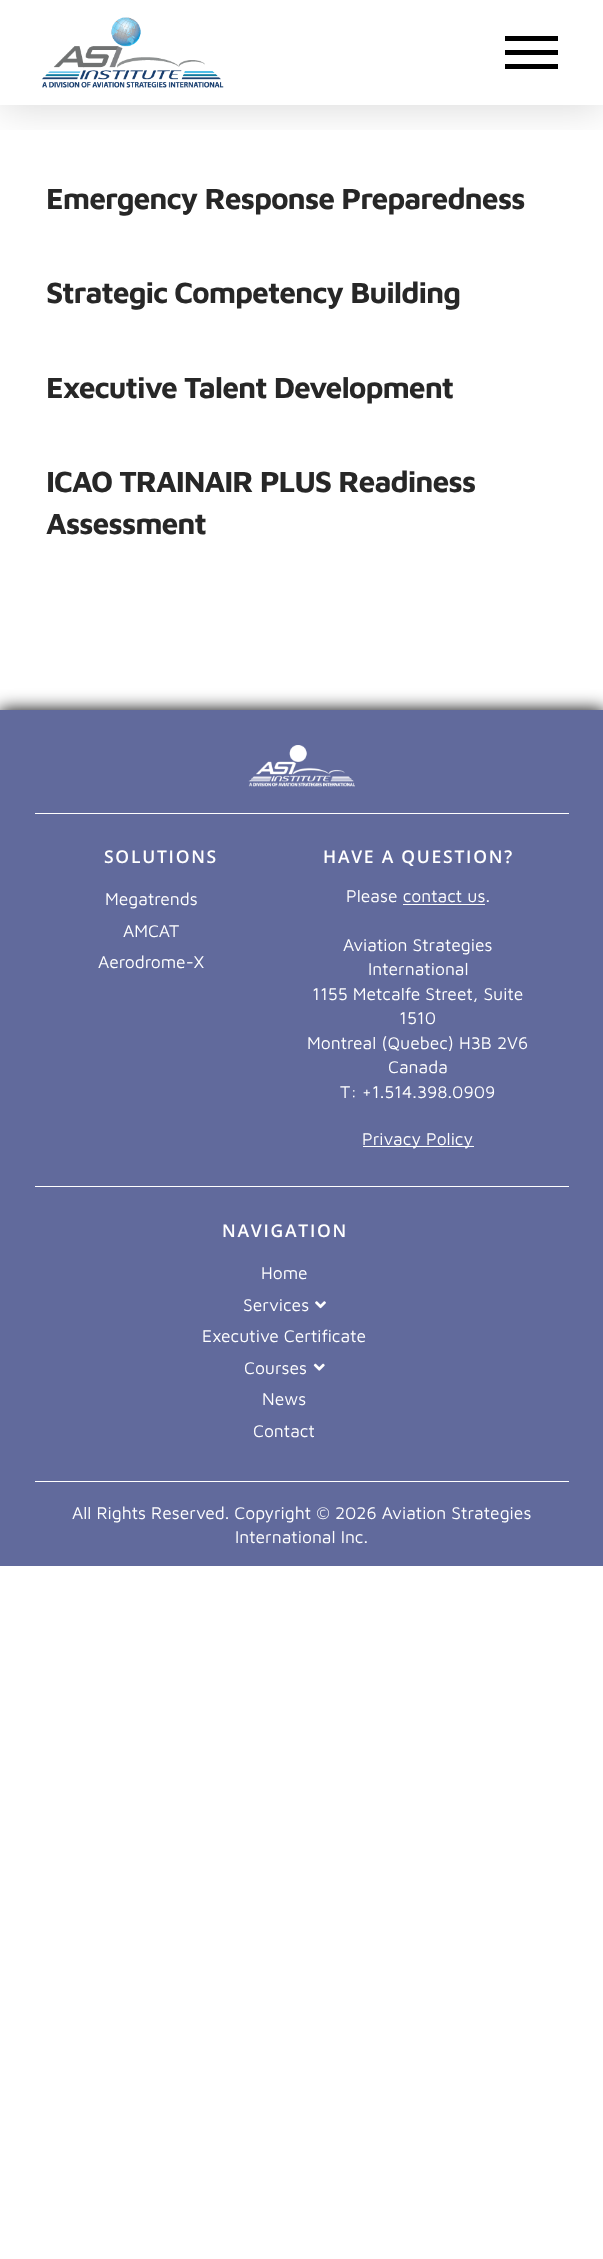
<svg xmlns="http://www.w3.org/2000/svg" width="603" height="2259">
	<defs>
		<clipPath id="clip1"><rect x="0" y="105" width="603" height="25" /></clipPath>
	</defs>
	<rect width="100%" height="100%" fill="#FFFFFF" />
	<g clip-path="url(#clip1)">
		<rect x="0" y="3" width="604" height="105" fill="#000000" fill-opacity="0.15" filter="blur(20px)" />
	</g>
	<image x="42" y="17" width="182" height="71" href="assets/img1.png" />
	<rect x="505" y="36" width="53" height="5" fill="#000000" />
	<rect x="505" y="50" width="53" height="5" fill="#000000" />
	<rect x="505" y="64" width="53" height="5" fill="#000000" />
	<g font-family="Maven Pro" font-size="30" font-weight="700" letter-spacing="-1.05" fill="#272727">
		<text x="46" y="209">Emergency Response Preparedness</text>
		<text x="46" y="303">Strategic Competency Building</text>
		<text x="46" y="398">Executive Talent Development</text>
		<text x="46" y="492">ICAO TRAINAIR PLUS Readiness</text>
		<text x="46" y="534">Assessment</text>
	</g>
	<rect x="-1" y="710" width="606" height="105" fill="#000000" filter="blur(9px)" />
	<rect x="0" y="710" width="603" height="856" fill="#616A9C" />
	<image x="248" y="745" width="107" height="42" href="assets/img2.png" />
	<rect x="35" y="813" width="534" height="1" fill="#FFFFFF" />
	<text x="104" y="863" font-family="Open Sans" font-size="17.5" font-weight="600" letter-spacing="1.75" fill="#FFFFFF">SOLUTIONS</text>
	<g font-family="Maven Pro" font-size="17.5" fill="#FFFFFF">
		<text x="105" y="905">Megatrends</text>
		<text x="123" y="937">AMCAT</text>
		<text x="98" y="968">Aerodrome-X</text>
	</g>
	<text x="323" y="863" font-family="Open Sans" font-size="17.5" font-weight="600" letter-spacing="1.75" fill="#FFFFFF">HAVE A QUESTION?</text>
	<text x="346" y="902" font-family="Maven Pro" font-size="17.5" fill="#FFFFFF">Please contact us.</text>
	<rect x="403" y="904" width="82" height="1" fill="#FFFFFF" />
	<g font-family="Maven Pro" font-size="17.5" fill="#FFFFFF">
		<text x="343" y="951">Aviation Strategies</text>
		<text x="368" y="975">International</text>
		<text x="312" y="1000">1155 Metcalfe Street, Suite</text>
		<text x="399" y="1024">1510</text>
		<text x="307" y="1049">Montreal (Quebec) H3B 2V6</text>
		<text x="388" y="1073">Canada</text>
		<text x="340" y="1098">T: +1.514.398.0909</text>
	</g>
	<rect x="363" y="1146" width="111" height="1" fill="#FFFFFF" />
	<text x="362" y="1145" font-family="Maven Pro" font-size="17.5" fill="#FFFFFF">Privacy Policy</text>
	<rect x="35" y="1186" width="534" height="1" fill="#FFFFFF" />
	<text x="222" y="1237" font-family="Open Sans" font-size="17.5" font-weight="600" letter-spacing="1.75" fill="#FFFFFF">NAVIGATION</text>
	<g font-family="Maven Pro" font-size="17.5" fill="#FFFFFF">
		<text x="261" y="1279">Home</text>
		<text x="243" y="1311">Services</text>
	</g>
	<image x="315" y="1301" width="11" height="8" href="assets/img3.png" />
	<g font-family="Maven Pro" font-size="17.5" fill="#FFFFFF">
		<text x="202" y="1342">Executive Certificate</text>
		<text x="244" y="1374">Courses</text>
	</g>
	<image x="313" y="1363" width="12" height="8" href="assets/img4.png" />
	<g font-family="Maven Pro" font-size="17.5" fill="#FFFFFF">
		<text x="262" y="1405">News</text>
		<text x="253" y="1437">Contact</text>
	</g>
	<rect x="35" y="1481" width="534" height="1" fill="#FFFFFF" />
	<g font-family="Maven Pro" font-size="17.5" fill="#FFFFFF">
		<text x="72" y="1519">All Rights Reserved. Copyright © 2026 Aviation Strategies</text>
		<text x="235" y="1543">International Inc.</text>
	</g>
</svg>
